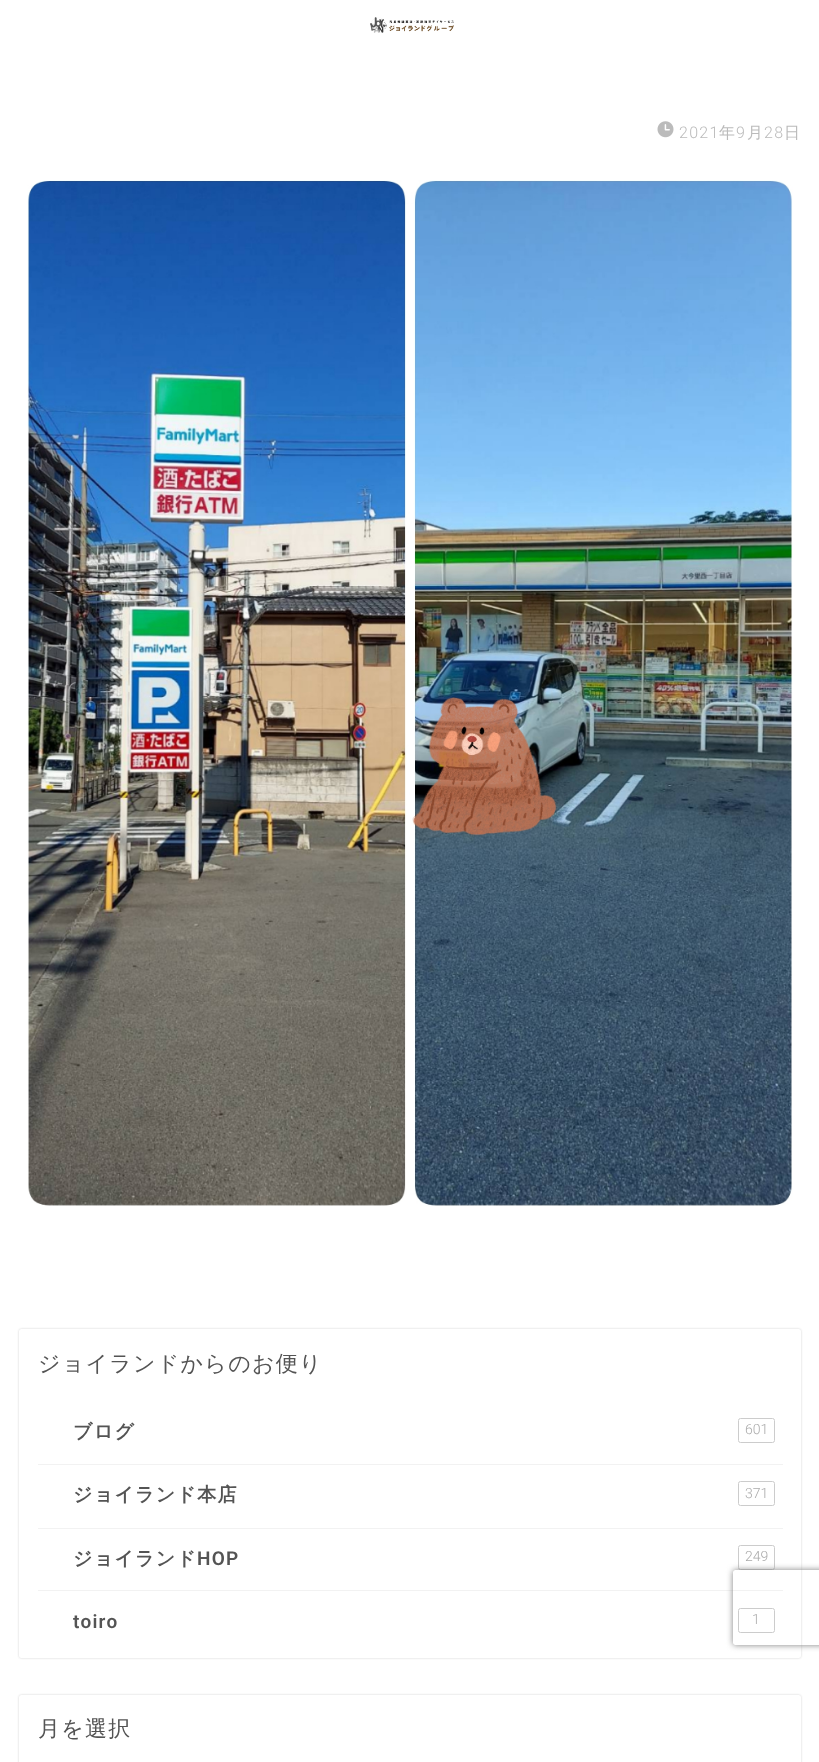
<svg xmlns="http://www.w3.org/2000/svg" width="819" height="1762">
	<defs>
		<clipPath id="clip1"><path d="M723 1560H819V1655H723ZM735.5 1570H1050.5C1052 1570 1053 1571 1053 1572.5V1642.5C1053 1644 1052 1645 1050.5 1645H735.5C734 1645 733 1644 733 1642.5V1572.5C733 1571 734 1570 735.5 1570Z" clip-rule="evenodd" /></clipPath>
	</defs>
	<rect width="100%" height="100%" fill="#FFFFFF" />
	<image x="370" y="17" width="84" height="16" href="assets/img1.png" />
	<image x="657" y="121" width="17" height="17" href="assets/img2.png" />
	<text x="679" y="138" font-family="Roboto" font-size="16" font-weight="300" letter-spacing="1.25" fill="#BBBBBB">2021</text>
	<text x="719" y="138" font-family="WenQuanYi Zen Hei" font-size="16" font-weight="500" letter-spacing="1.25" fill="#BBBBBB">年</text>
	<text x="736" y="138" font-family="Roboto" font-size="16" font-weight="300" letter-spacing="1.25" fill="#BBBBBB">9</text>
	<text x="747" y="138" font-family="WenQuanYi Zen Hei" font-size="16" font-weight="500" letter-spacing="1.25" fill="#BBBBBB">月</text>
	<text x="764" y="138" font-family="Roboto" font-size="16" font-weight="300" letter-spacing="1.25" fill="#BBBBBB">28</text>
	<text x="784" y="138" font-family="WenQuanYi Zen Hei" font-size="16" font-weight="500" letter-spacing="1.25" fill="#BBBBBB">日</text>
	<image x="27" y="180" width="766" height="1026" href="assets/img3.png" />
	<rect x="19" y="1329" width="782" height="329" rx="2.5" fill="#000000" fill-opacity="0.18" filter="blur(1px)" />
	<rect x="19" y="1329" width="782" height="329" rx="2.5" fill="#FFFFFF" />
	<text x="38" y="1371" font-family="WenQuanYi Zen Hei" font-size="22" font-weight="500" letter-spacing="1.25" fill="#545454">ジョイランドからのお便り</text>
	<rect x="38" y="1464" width="745" height="1" fill="#F2F2F2" />
	<text x="73" y="1438" font-family="WenQuanYi Zen Hei" font-size="19" font-weight="700" letter-spacing="1.25" fill="#545454">ブログ</text>
	<rect x="738.5" y="1418.5" width="36" height="24" rx="2" fill="none" stroke="#CCCCCC" />
	<text x="745" y="1434" font-family="Roboto" font-size="14" font-weight="300" fill="#AAAAAA">601</text>
	<rect x="38" y="1528" width="745" height="1" fill="#F2F2F2" />
	<text x="73" y="1501" font-family="WenQuanYi Zen Hei" font-size="19" font-weight="700" letter-spacing="1.25" fill="#545454">ジョイランド本店</text>
	<rect x="738.5" y="1481.5" width="36" height="24" rx="2" fill="none" stroke="#CCCCCC" />
	<text x="745" y="1498" font-family="Roboto" font-size="14" font-weight="300" fill="#AAAAAA">371</text>
	<rect x="38" y="1590" width="745" height="1" fill="#F2F2F2" />
	<text x="73" y="1565" font-family="WenQuanYi Zen Hei" font-size="19" font-weight="700" letter-spacing="1.25" fill="#545454">ジョイランド</text>
	<text x="197" y="1565" font-family="Roboto" font-size="19" font-weight="600" letter-spacing="1.25" fill="#545454">HOP</text>
	<rect x="738.5" y="1545.5" width="36" height="24" rx="2" fill="none" stroke="#CCCCCC" />
	<text x="745" y="1561" font-family="Roboto" font-size="14" font-weight="300" fill="#AAAAAA">249</text>
	<text x="73" y="1628" font-family="Roboto" font-size="19" font-weight="600" letter-spacing="1.25" fill="#545454">toiro</text>
	<rect x="738.5" y="1608.5" width="36" height="24" rx="2" fill="none" stroke="#CCCCCC" />
	<text x="752" y="1624" font-family="Roboto" font-size="14" font-weight="300" fill="#AAAAAA">1</text>
	<rect x="19" y="1695" width="782" height="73" rx="2.5" fill="#000000" fill-opacity="0.18" filter="blur(1px)" />
	<rect x="19" y="1695" width="782" height="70" rx="2.5" fill="#FFFFFF" />
	<text x="38" y="1736" font-family="WenQuanYi Zen Hei" font-size="22" font-weight="500" letter-spacing="1.25" fill="#545454">月を選択</text>
	<g clip-path="url(#clip1)">
		<rect x="733" y="1570" width="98" height="75" rx="2.5" fill="#808080" filter="blur(3px)" />
	</g>
</svg>
